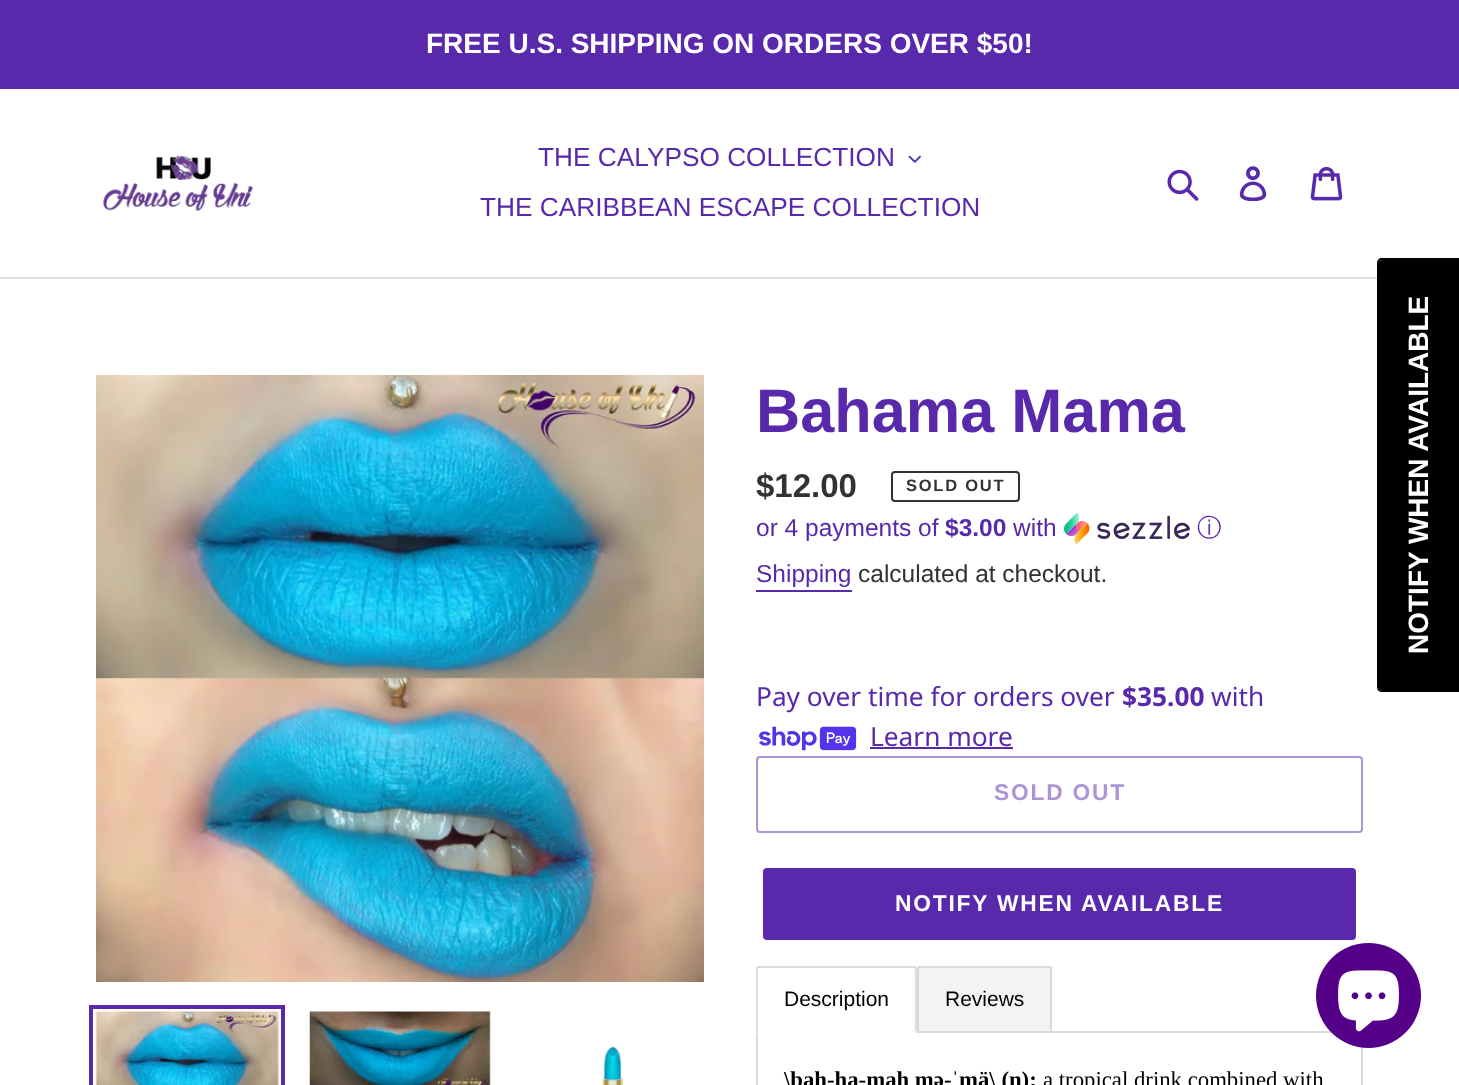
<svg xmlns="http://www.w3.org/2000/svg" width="1459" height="1085">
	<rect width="100%" height="100%" fill="#FFFFFF" />
	<rect x="0" y="0" width="1459" height="89" fill="#5829AB" />
	<text x="426" y="53" font-family="Liberation Sans" font-size="28" font-weight="700" fill="#FFFFFF">FREE U.S. SHIPPING ON ORDERS OVER $50!</text>
	<rect x="0" y="277" width="1377" height="2" fill="#DEE2E6" />
	<image x="103" y="155" width="150" height="57" href="assets/img1.png" />
	<text x="538" y="166" font-family="Liberation Sans" font-size="26.25" fill="#5829AB">THE CALYPSO COLLECTION</text>
	<image x="908" y="155" width="13" height="8" href="assets/img2.png" />
	<text x="480" y="216" font-family="Liberation Sans" font-size="26.25" fill="#5829AB">THE CARIBBEAN ESCAPE COLLECTION</text>
	<image x="1167" y="169" width="32" height="32" href="assets/img3.png" />
	<image x="1239" y="166" width="28" height="35" href="assets/img4.png" />
	<image x="1310" y="166" width="33" height="35" href="assets/img5.png" />
	<image x="96" y="375" width="608" height="607" href="assets/img6.png" />
	<rect x="91" y="1007" width="192" height="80" fill="none" stroke="#5829AB" stroke-width="4" />
	<image x="95" y="1011" width="184" height="74" href="assets/img7.png" />
	<image x="309" y="1011" width="182" height="74" href="assets/img8.png" />
	<image x="601" y="1046" width="23" height="39" href="assets/img9.png" />
	<text x="756" y="432" font-family="Liberation Sans" font-size="61.25" font-weight="700" fill="#5829AB">Bahama Mama</text>
	<text x="756" y="497" font-family="Liberation Sans" font-size="33" font-weight="700" fill="#333232">$12.00</text>
	<rect x="892" y="472" width="127" height="29" rx="3" fill="none" stroke="#333232" stroke-width="2" />
	<text x="906" y="491" font-family="Liberation Sans" font-size="16.5" font-weight="700" letter-spacing="1.75" fill="#333232">SOLD OUT</text>
	<text x="756" y="536" font-family="Liberation Sans" font-size="24.5" fill="#5829AB">or 4 payments of</text>
	<text x="945" y="536" font-family="Liberation Sans" font-size="24.5" font-weight="700" fill="#5829AB">$3.00</text>
	<text x="1013" y="536" font-family="Liberation Sans" font-size="24.5" fill="#5829AB">with</text>
	<image x="1064" y="513" width="126" height="31" href="assets/img10.png" />
	<text x="1197" y="536" font-family="WenQuanYi Zen Hei" font-size="24.5" font-weight="500" fill="#5829AB">ⓘ</text>
	<text x="756" y="582" font-family="Liberation Sans" font-size="24.5" fill="#5829AB">Shipping</text>
	<rect x="756" y="590" width="96" height="2" fill="#5829AB" />
	<text x="858" y="582" font-family="Liberation Sans" font-size="24.5" fill="#333232">calculated at checkout.</text>
	<text x="756" y="706" font-family="Noto Sans" font-size="26.25" fill="#5829AB">Pay over time for orders over</text>
	<text x="1122" y="706" font-family="Noto Sans" font-size="26.25" font-weight="700" fill="#5829AB">$35.00</text>
	<text x="1211" y="706" font-family="Noto Sans" font-size="26.25" fill="#5829AB">with</text>
	<image x="759" y="726" width="98" height="25" href="assets/img11.png" />
	<text x="870" y="746" font-family="Noto Sans" font-size="26.25" fill="#5829AB">Learn more</text>
	<rect x="870" y="747" width="143" height="2" fill="#5829AB" />
	<rect x="757" y="757" width="605" height="75" rx="3" fill="none" stroke="#AC94D5" stroke-width="2" />
	<text x="994" y="800" font-family="Liberation Sans" font-size="22.75" font-weight="700" letter-spacing="1.8" fill="#AC94D5">SOLD OUT</text>
	<rect x="763" y="868" width="593" height="72" rx="4" fill="#5829AB" />
	<text x="895" y="911" font-family="Liberation Sans" font-size="22.75" font-weight="700" letter-spacing="1.8" fill="#FFFFFF">NOTIFY WHEN AVAILABLE</text>
	<rect x="757" y="1032" width="605" height="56" rx="1" fill="none" stroke="#DBDADA" stroke-width="2" />
	<rect x="756" y="966" width="161" height="67" rx="2" fill="#FFFFFF" />
	<path d="M757 1031.5V968L758 967H915L916 968V1031.5" fill="none" stroke="#DBDADA" stroke-width="1.8" />
	<text x="784" y="1006" font-family="Liberation Sans" font-size="21" fill="#000000">Description</text>
	<rect x="918" y="967" width="133" height="65" rx="1" fill="#F4F2F2" stroke="#DBDADA" stroke-width="2" />
	<text x="945" y="1006" font-family="Liberation Sans" font-size="21" fill="#000000">Reviews</text>
	<text x="784" y="1087" font-family="Liberation Serif" font-size="22.75" font-weight="700" fill="#000000">\bah-ha-mah mə-ˈmä\ (n):</text>
	<text x="1043" y="1087" font-family="Liberation Serif" font-size="22.75" fill="#000000">a tropical drink combined with</text>
	<path d="M1378 687V263C1378 261 1380 260 1382 260H1459V691H1382C1380 691 1378 689 1378 687Z" fill="#000000" />
	<path d="M1377 687V263C1377 260 1379 258 1382 258H1459V692H1382C1379 692 1377 690 1377 687ZM1378 687V263C1378 261 1380 260 1382 260H1459V691H1382C1380 691 1378 689 1378 687Z" fill="#000000" fill-rule="evenodd" />
	<text x="1428" y="654" transform="rotate(-90 1428 654)" font-family="Liberation Sans" font-size="28" font-weight="700" fill="#FFFFFF">NOTIFY WHEN AVAILABLE</text>
	<circle cx="1368.5" cy="995.5" r="52.5" fill="#540088" />
	<image x="1338" y="970" width="61" height="62" href="assets/img12.png" />
</svg>
